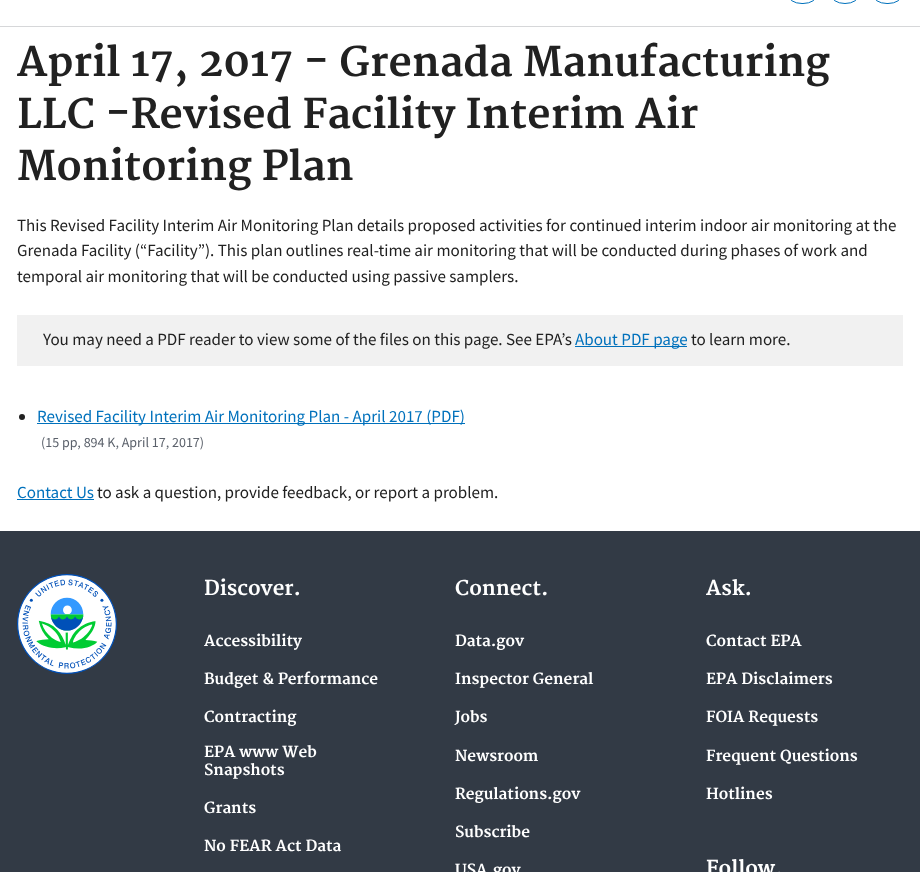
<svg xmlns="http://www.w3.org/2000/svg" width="920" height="872">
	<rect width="100%" height="100%" fill="#FFFFFF" />
	<rect x="0" y="26" width="920" height="1" fill="#D6D7D9" />
	<rect x="787.5" y="-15.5" width="30" height="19" rx="14.5" fill="none" stroke="#0071BC" />
	<rect x="830.5" y="-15.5" width="29" height="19" rx="14.5" fill="none" stroke="#0071BC" />
	<rect x="872.5" y="-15.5" width="30" height="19" rx="14.5" fill="none" stroke="#0071BC" />
	<g font-family="Merriweather" font-size="40" font-weight="700" fill="#212121">
		<text x="17" y="76">April 17, 2017 - Grenada Manufacturing</text>
		<text x="17" y="128">LLC -Revised Facility Interim Air</text>
		<text x="17" y="180">Monitoring Plan</text>
	</g>
	<g font-family="Source Sans Pro" font-size="17" fill="#212121">
		<text x="17" y="231">This Revised Facility Interim Air Monitoring Plan details proposed activities for continued interim indoor air monitoring at the</text>
		<text x="17" y="256">Grenada Facility (“Facility”). This plan outlines real-time air monitoring that will be conducted during phases of work and</text>
		<text x="17" y="282">temporal air monitoring that will be conducted using passive samplers.</text>
	</g>
	<rect x="17" y="315" width="886" height="51" fill="#F1F1F1" />
	<text x="43" y="345" font-family="Source Sans Pro" font-size="17" fill="#212121">You may need a PDF reader to view some of the files on this page. See EPA’s</text>
	<rect x="575" y="346" width="112" height="1" fill="#0071BC" />
	<text x="575" y="345" font-family="Source Sans Pro" font-size="17" fill="#0071BC">About PDF page</text>
	<text x="691" y="345" font-family="Source Sans Pro" font-size="17" fill="#212121">to learn more.</text>
	<circle cx="22" cy="417" r="3" fill="#212121" />
	<rect x="37" y="423" width="428" height="1" fill="#0071BC" />
	<text x="37" y="422" font-family="Source Sans Pro" font-size="17" fill="#0071BC">Revised Facility Interim Air Monitoring Plan - April 2017 (PDF)</text>
	<text x="41" y="447" font-family="Source Sans Pro" font-size="14" fill="#5B616B">(15 pp, 894 K, April 17, 2017)</text>
	<text x="17" y="498" font-family="Source Sans Pro" font-size="17" fill="#0071BC">Contact Us</text>
	<rect x="17" y="499" width="77" height="1" fill="#0071BC" />
	<text x="97" y="498" font-family="Source Sans Pro" font-size="17" fill="#212121">to ask a question, provide feedback, or report a problem.</text>
	<rect x="0" y="531" width="920" height="341" fill="#323A45" />
	<image x="17" y="574" width="100" height="100" href="assets/img1.png" />
	<text x="204" y="595" font-family="Merriweather" font-size="20" font-weight="700" fill="#FFFFFF">Discover.</text>
	<g font-family="Merriweather" font-size="15" font-weight="700" fill="#FFFFFF">
		<text x="204" y="646">Accessibility</text>
		<text x="204" y="684">Budget &amp; Performance</text>
		<text x="204" y="722">Contracting</text>
		<text x="204" y="757">EPA www Web</text>
		<text x="204" y="775">Snapshots</text>
		<text x="204" y="813">Grants</text>
		<text x="204" y="851">No FEAR Act Data</text>
	</g>
	<text x="455" y="595" font-family="Merriweather" font-size="20" font-weight="700" fill="#FFFFFF">Connect.</text>
	<g font-family="Merriweather" font-size="15" font-weight="700" fill="#FFFFFF">
		<text x="455" y="646">Data.gov</text>
		<text x="455" y="684">Inspector General</text>
		<text x="455" y="722">Jobs</text>
		<text x="455" y="761">Newsroom</text>
		<text x="455" y="799">Regulations.gov</text>
		<text x="455" y="837">Subscribe</text>
		<text x="455" y="875">USA.gov</text>
	</g>
	<text x="706" y="595" font-family="Merriweather" font-size="20" font-weight="700" fill="#FFFFFF">Ask.</text>
	<g font-family="Merriweather" font-size="15" font-weight="700" fill="#FFFFFF">
		<text x="706" y="646">Contact EPA</text>
		<text x="706" y="684">EPA Disclaimers</text>
		<text x="706" y="722">FOIA Requests</text>
		<text x="706" y="761">Frequent Questions</text>
		<text x="706" y="799">Hotlines</text>
	</g>
	<text x="706" y="875" font-family="Merriweather" font-size="20" font-weight="700" fill="#FFFFFF">Follow.</text>
</svg>
